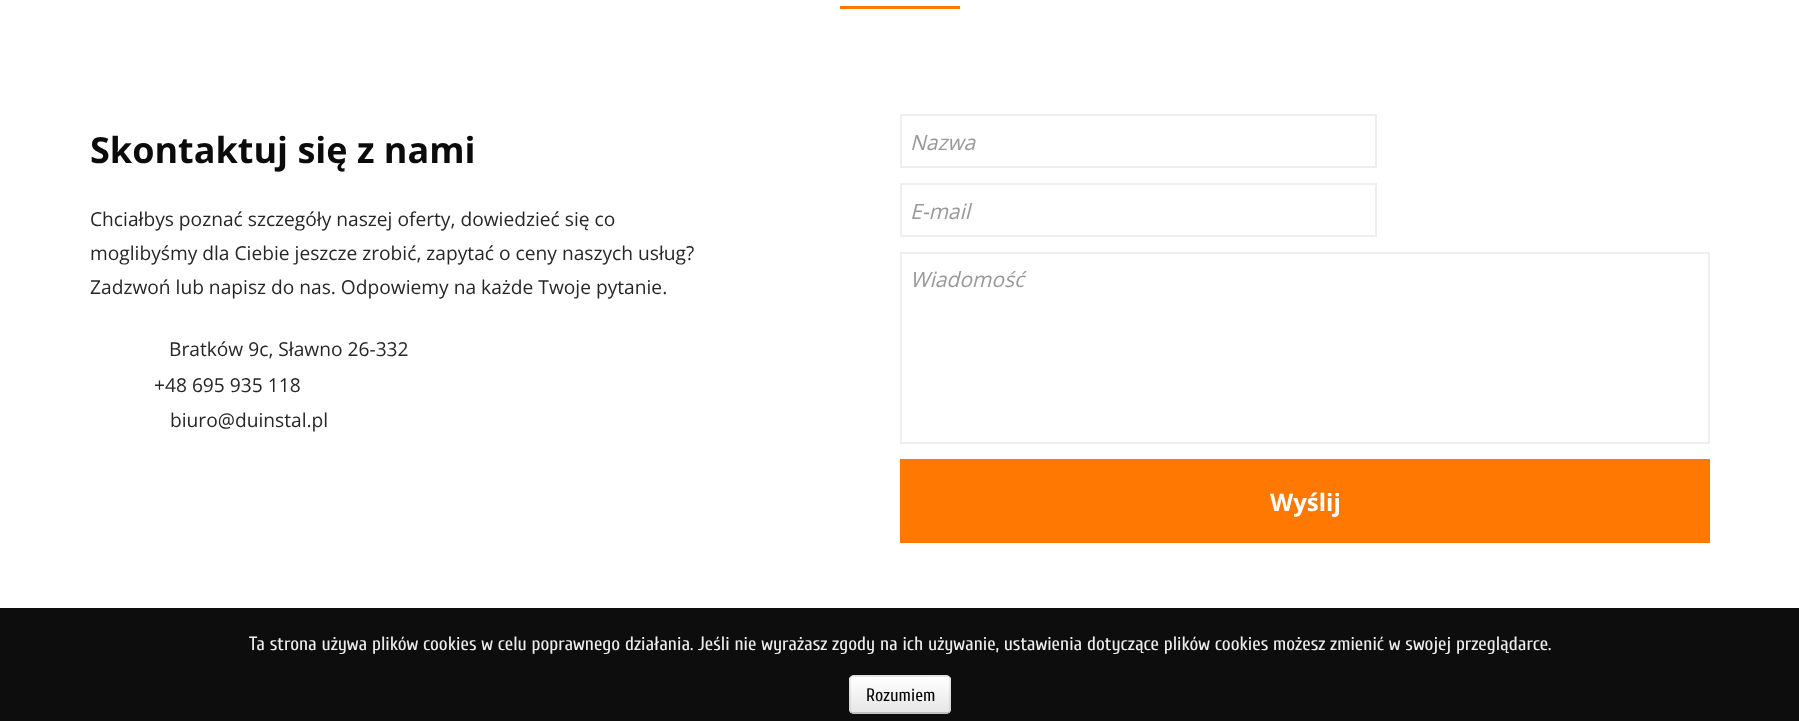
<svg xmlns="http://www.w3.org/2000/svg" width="1799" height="721">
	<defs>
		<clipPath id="clip1"><rect x="849" y="675" width="102" height="39" rx="5" /></clipPath>
		<linearGradient id="g1" gradientUnits="userSpaceOnUse" x1="900" y1="677" x2="900" y2="713"><stop offset="0" stop-color="#FFFFFF" /><stop offset="1" stop-color="#E6E6E6" /></linearGradient>
	</defs>
	<rect width="100%" height="100%" fill="#FFFFFF" />
	<rect x="840" y="6" width="120" height="3" fill="#FF7802" />
	<text x="90" y="163" font-family="Open Sans" font-size="36" font-weight="700" fill="#0B0B0B">Skontaktuj się z nami</text>
	<g font-family="Open Sans" font-size="19.2" fill="#262626">
		<text x="90" y="226">Chciałbys poznać szczegóły naszej oferty, dowiedzieć się co</text>
		<text x="90" y="260">moglibyśmy dla Ciebie jeszcze zrobić, zapytać o ceny naszych usług?</text>
		<text x="90" y="294">Zadzwoń lub napisz do nas. Odpowiemy na każde Twoje pytanie.</text>
		<text x="169" y="356">Bratków 9c, Sławno 26-332</text>
		<text x="154" y="392">+48 695 935 118</text>
		<text x="170" y="427">biuro@duinstal.pl</text>
	</g>
	<rect x="901" y="115" width="475" height="52" fill="none" stroke="#EEEEEE" stroke-width="2" />
	<text x="910" y="150" font-family="Open Sans" font-size="21" font-style="italic" fill="#999999">Nazwa</text>
	<rect x="901" y="184" width="475" height="52" fill="none" stroke="#EEEEEE" stroke-width="2" />
	<text x="910" y="219" font-family="Open Sans" font-size="21" font-style="italic" fill="#999999">E-mail</text>
	<rect x="901" y="253" width="808" height="190" fill="none" stroke="#EEEEEE" stroke-width="2" />
	<text x="910" y="287" font-family="Open Sans" font-size="21" font-style="italic" fill="#999999">Wiadomość</text>
	<rect x="900" y="459" width="810" height="84" fill="#FF7802" />
	<text x="1270" y="511" font-family="Open Sans" font-size="24" font-weight="700" fill="#FFFFFF">Wyślij</text>
	<rect x="0" y="608" width="1799" height="113" fill="#0D0D0D" />
	<text x="249" y="650" font-family="Cuprum" font-size="19.2" fill="#EDEDED">Ta strona używa plików cookies w celu poprawnego działania. Jeśli nie wyrażasz zgody na ich używanie, ustawienia dotyczące plików cookies możesz zmienić w swojej przeglądarce.</text>
	<rect x="849" y="675" width="102" height="39" rx="5" fill="#F5F5F5" />
	<g clip-path="url(#clip1)">
		<rect x="849" y="677" width="102" height="36" fill="url(#g1)" />
	</g>
	<path d="M949 712C948.5 713 947.5 713 946.5 713H853.5C852.5 713 851.5 713 851 712" fill="none" stroke="#B3B3B3" stroke-width="1.5" />
	<path d="M851 712C849 710.5 850 706.5 850 704.5V694.5C850 672.5 846 676 869 676H931C954 676 950 672.5 950 694.5V704.5C950 706.5 951 710.5 949 712" fill="none" stroke="#000000" stroke-opacity="0.1" stroke-width="1.5" />
	<text x="866" y="701" font-family="Cuprum" font-size="18" fill="#050505">Rozumiem</text>
</svg>
